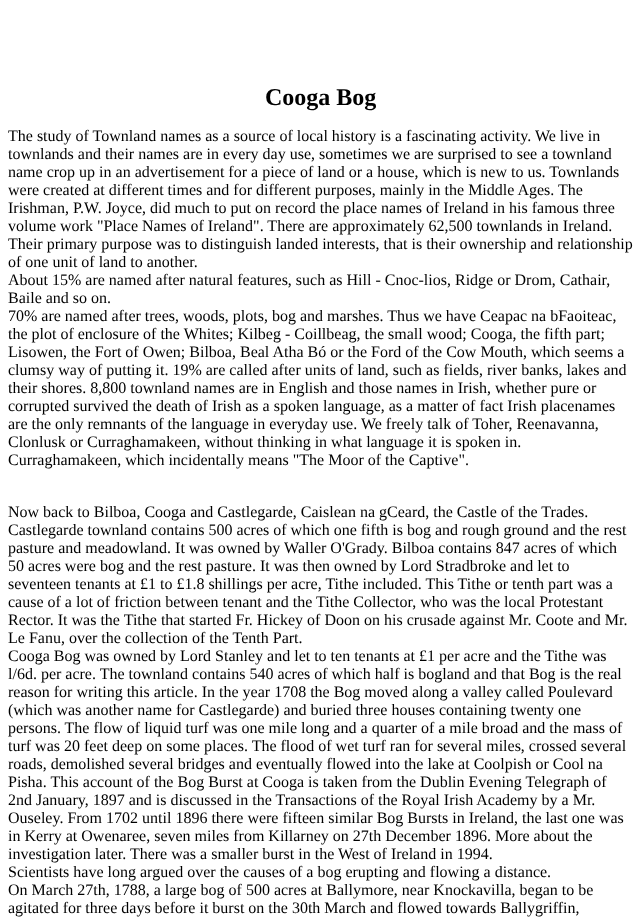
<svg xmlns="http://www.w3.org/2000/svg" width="642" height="920">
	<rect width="100%" height="100%" fill="#FFFFFF" />
	<text x="265" y="105" font-family="Liberation Serif" font-size="24" font-weight="700" fill="#000000">Cooga Bog</text>
	<g font-family="Liberation Serif" font-size="16" fill="#000000">
		<text x="8" y="141">The study of Townland names as a source of local history is a fascinating activity. We live in</text>
		<text x="8" y="159">townlands and their names are in every day use, sometimes we are surprised to see a townland</text>
		<text x="8" y="177">name crop up in an advertisement for a piece of land or a house, which is new to us. Townlands</text>
		<text x="8" y="195">were created at different times and for different purposes, mainly in the Middle Ages. The</text>
		<text x="8" y="213">Irishman, P.W. Joyce, did much to put on record the place names of Ireland in his famous three</text>
		<text x="8" y="231">volume work "Place Names of Ireland". There are approximately 62,500 townlands in Ireland.</text>
		<text x="8" y="249">Their primary purpose was to distinguish landed interests, that is their ownership and relationship</text>
		<text x="8" y="267">of one unit of land to another.</text>
		<text x="8" y="285">About 15% are named after natural features, such as Hill - Cnoc-lios, Ridge or Drom, Cathair,</text>
		<text x="8" y="303">Baile and so on.</text>
		<text x="8" y="321">70% are named after trees, woods, plots, bog and marshes. Thus we have Ceapac na bFaoiteac,</text>
		<text x="8" y="339">the plot of enclosure of the Whites; Kilbeg - Coillbeag, the small wood; Cooga, the fifth part;</text>
		<text x="8" y="357">Lisowen, the Fort of Owen; Bilboa, Beal Atha Bó or the Ford of the Cow Mouth, which seems a</text>
		<text x="8" y="375">clumsy way of putting it. 19% are called after units of land, such as fields, river banks, lakes and</text>
		<text x="8" y="393">their shores. 8,800 townland names are in English and those names in Irish, whether pure or</text>
		<text x="8" y="411">corrupted survived the death of Irish as a spoken language, as a matter of fact Irish placenames</text>
		<text x="8" y="429">are the only remnants of the language in everyday use. We freely talk of Toher, Reenavanna,</text>
		<text x="8" y="447">Clonlusk or Curraghamakeen, without thinking in what language it is spoken in.</text>
		<text x="8" y="465">Curraghamakeen, which incidentally means "The Moor of the Captive".</text>
		<text x="8" y="517">Now back to Bilboa, Cooga and Castlegarde, Caislean na gCeard, the Castle of the Trades.</text>
		<text x="8" y="535">Castlegarde townland contains 500 acres of which one fifth is bog and rough ground and the rest</text>
		<text x="8" y="553">pasture and meadowland. It was owned by Waller O'Grady. Bilboa contains 847 acres of which</text>
		<text x="8" y="571">50 acres were bog and the rest pasture. It was then owned by Lord Stradbroke and let to</text>
		<text x="8" y="589">seventeen tenants at £1 to £1.8 shillings per acre, Tithe included. This Tithe or tenth part was a</text>
		<text x="8" y="607">cause of a lot of friction between tenant and the Tithe Collector, who was the local Protestant</text>
		<text x="8" y="625">Rector. It was the Tithe that started Fr. Hickey of Doon on his crusade against Mr. Coote and Mr.</text>
		<text x="8" y="643">Le Fanu, over the collection of the Tenth Part.</text>
		<text x="8" y="661">Cooga Bog was owned by Lord Stanley and let to ten tenants at £1 per acre and the Tithe was</text>
		<text x="8" y="679">l/6d. per acre. The townland contains 540 acres of which half is bogland and that Bog is the real</text>
		<text x="8" y="697">reason for writing this article. In the year 1708 the Bog moved along a valley called Poulevard</text>
		<text x="8" y="715">(which was another name for Castlegarde) and buried three houses containing twenty one</text>
		<text x="8" y="733">persons. The flow of liquid turf was one mile long and a quarter of a mile broad and the mass of</text>
		<text x="8" y="751">turf was 20 feet deep on some places. The flood of wet turf ran for several miles, crossed several</text>
		<text x="8" y="769">roads, demolished several bridges and eventually flowed into the lake at Coolpish or Cool na</text>
		<text x="8" y="787">Pisha. This account of the Bog Burst at Cooga is taken from the Dublin Evening Telegraph of</text>
		<text x="8" y="805">2nd January, 1897 and is discussed in the Transactions of the Royal Irish Academy by a Mr.</text>
		<text x="8" y="823">Ouseley. From 1702 until 1896 there were fifteen similar Bog Bursts in Ireland, the last one was</text>
		<text x="8" y="841">in Kerry at Owenaree, seven miles from Killarney on 27th December 1896. More about the</text>
		<text x="8" y="859">investigation later. There was a smaller burst in the West of Ireland in 1994.</text>
		<text x="8" y="877">Scientists have long argued over the causes of a bog erupting and flowing a distance.</text>
		<text x="8" y="895">On March 27th, 1788, a large bog of 500 acres at Ballymore, near Knockavilla, began to be</text>
		<text x="8" y="913">agitated for three days before it burst on the 30th March and flowed towards Ballygriffin,</text>
	</g>
</svg>
